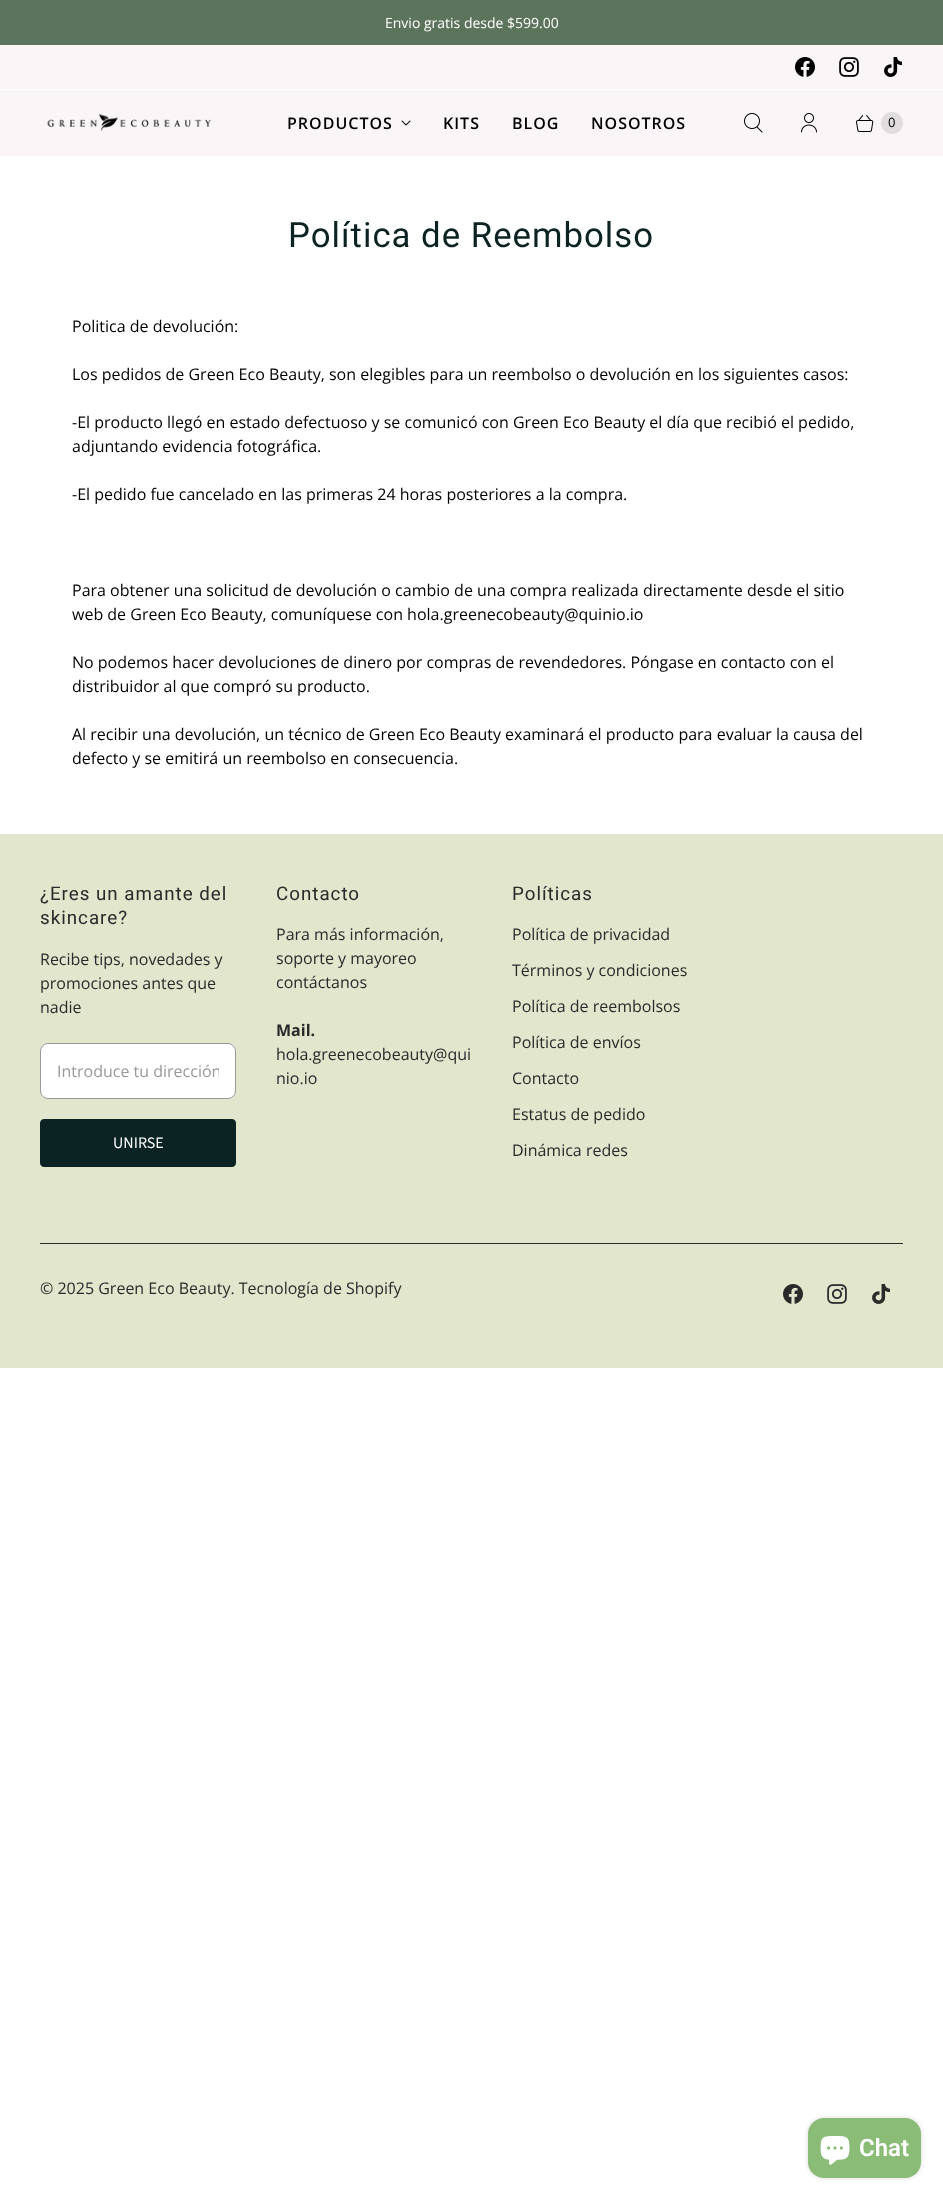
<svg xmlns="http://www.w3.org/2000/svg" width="943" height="2199">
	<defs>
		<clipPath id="clip1"><rect x="57" y="1060" width="162" height="22" /></clipPath>
	</defs>
	<rect width="100%" height="100%" fill="#FFFFFF" />
	<rect x="0" y="0" width="943" height="45" fill="#5D745C" />
	<text x="385" y="28" font-family="Open Sans" font-size="14" fill="#FFFFFF">Envio gratis desde $599.00</text>
	<rect x="0" y="45" width="943" height="44" fill="#FAF6F8" />
	<image x="795" y="57" width="20" height="20" href="assets/img1.png" />
	<image x="839" y="57" width="20" height="20" href="assets/img2.png" />
	<image x="884" y="57" width="18" height="20" href="assets/img3.png" />
	<rect x="0" y="90" width="943" height="66" fill="#FAF6F8" />
	<image x="47" y="113" width="164" height="18" href="assets/img4.png" />
	<text x="287" y="129" font-family="Open Sans" font-size="16" font-weight="600" letter-spacing="1" fill="#000000">PRODUCTOS</text>
	<image x="401" y="120" width="10" height="6" href="assets/img5.png" />
	<g font-family="Open Sans" font-size="16" font-weight="600" letter-spacing="1" fill="#000000">
		<text x="443" y="129">KITS</text>
		<text x="512" y="129">BLOG</text>
		<text x="591" y="129">NOSOTROS</text>
	</g>
	<image x="744" y="113" width="19" height="20" href="assets/img6.png" />
	<image x="801" y="113" width="16" height="20" href="assets/img7.png" />
	<image x="856" y="115" width="18" height="17" href="assets/img8.png" />
	<circle cx="892" cy="123" r="11" fill="#E1DDDF" />
	<text x="888" y="127" font-family="Open Sans" font-size="13" fill="#000000">0</text>
	<text x="288" y="247" font-family="Roboto" font-size="34.75" letter-spacing="1" fill="#0B2322">Política de Reembolso</text>
	<g font-family="Open Sans" font-size="16" fill="#000000">
		<text x="72" y="332">Politica de devolución:</text>
		<text x="72" y="380">Los pedidos de Green Eco Beauty, son elegibles para un reembolso o devolución en los siguientes casos:</text>
		<text x="72" y="428">-El producto llegó en estado defectuoso y se comunicó con Green Eco Beauty el día que recibió el pedido,</text>
		<text x="72" y="452">adjuntando evidencia fotográfica.</text>
		<text x="72" y="500">-El pedido fue cancelado en las primeras 24 horas posteriores a la compra.</text>
		<text x="72" y="596">Para obtener una solicitud de devolución o cambio de una compra realizada directamente desde el sitio</text>
		<text x="72" y="620">web de Green Eco Beauty, comuníquese con hola.greenecobeauty@quinio.io</text>
		<text x="72" y="668">No podemos hacer devoluciones de dinero por compras de revendedores. Póngase en contacto con el</text>
		<text x="72" y="692">distribuidor al que compró su producto.</text>
		<text x="72" y="740">Al recibir una devolución, un técnico de Green Eco Beauty examinará el producto para evaluar la causa del</text>
		<text x="72" y="764">defecto y se emitirá un reembolso en consecuencia.</text>
	</g>
	<rect x="0" y="834" width="943" height="534" fill="#E1E6CD" />
	<g font-family="Roboto" font-size="18.75" letter-spacing="1" fill="#2A2A2A">
		<text x="40" y="900">¿Eres un amante del</text>
		<text x="40" y="924">skincare?</text>
	</g>
	<g font-family="Open Sans" font-size="16" fill="#2A2A2A">
		<text x="40" y="965">Recibe tips, novedades y</text>
		<text x="40" y="989">promociones antes que</text>
		<text x="40" y="1013">nadie</text>
	</g>
	<rect x="40" y="1043" width="196" height="56" rx="8" fill="#FFFFFF" />
	<rect x="40.5" y="1043.5" width="195" height="55" rx="7.5" fill="none" stroke="#000000" stroke-opacity="0.4" />
	<g clip-path="url(#clip1)">
		<text x="57" y="1077" font-family="Open Sans" font-size="16" fill="#999999">Introduce tu dirección</text>
	</g>
	<rect x="40.5" y="1119.5" width="195" height="47" rx="3.5" fill="#0B2322" stroke="#0B2322" />
	<text x="113" y="1148" font-family="Source Sans Pro" font-size="16" fill="#FFFFFF">UNIRSE</text>
	<text x="276" y="900" font-family="Roboto" font-size="18.75" letter-spacing="1" fill="#2A2A2A">Contacto</text>
	<g font-family="Open Sans" font-size="16" fill="#2A2A2A">
		<text x="276" y="940">Para más información,</text>
		<text x="276" y="964">soporte y mayoreo</text>
		<text x="276" y="988">contáctanos</text>
	</g>
	<text x="276" y="1036" font-family="Open Sans" font-size="16" font-weight="700" fill="#2A2A2A">Mail.</text>
	<g font-family="Open Sans" font-size="16" fill="#2A2A2A">
		<text x="276" y="1060">hola.greenecobeauty@qui</text>
		<text x="276" y="1084">nio.io</text>
	</g>
	<text x="512" y="900" font-family="Roboto" font-size="18.75" letter-spacing="1" fill="#2A2A2A">Políticas</text>
	<g font-family="Open Sans" font-size="16" fill="#2A2A2A">
		<text x="512" y="940">Política de privacidad</text>
		<text x="512" y="976">Términos y condiciones</text>
		<text x="512" y="1012">Política de reembolsos</text>
		<text x="512" y="1048">Política de envíos</text>
		<text x="512" y="1084">Contacto</text>
		<text x="512" y="1120">Estatus de pedido</text>
		<text x="512" y="1156">Dinámica redes</text>
	</g>
	<rect x="40" y="1243" width="863" height="1" fill="#2A2A2A" />
	<text x="40" y="1294" font-family="Open Sans" font-size="16" fill="#2A2A2A">© 2025 Green Eco Beauty. Tecnología de Shopify</text>
	<image x="783" y="1284" width="20" height="20" href="assets/img9.png" />
	<image x="827" y="1284" width="20" height="20" href="assets/img10.png" />
	<image x="872" y="1284" width="18" height="20" href="assets/img11.png" />
	<rect x="808" y="2118" width="113" height="60" rx="16" fill="#000000" fill-opacity="0.15" filter="blur(2.5px)" />
	<rect x="808" y="2118" width="113" height="60" rx="16" fill="#8ABC78" />
	<image x="820" y="2136" width="30" height="29" href="assets/img12.png" />
	<text x="859" y="2156" font-family="Roboto" font-size="24" font-weight="600" fill="#FFFFFF">Chat</text>
</svg>
